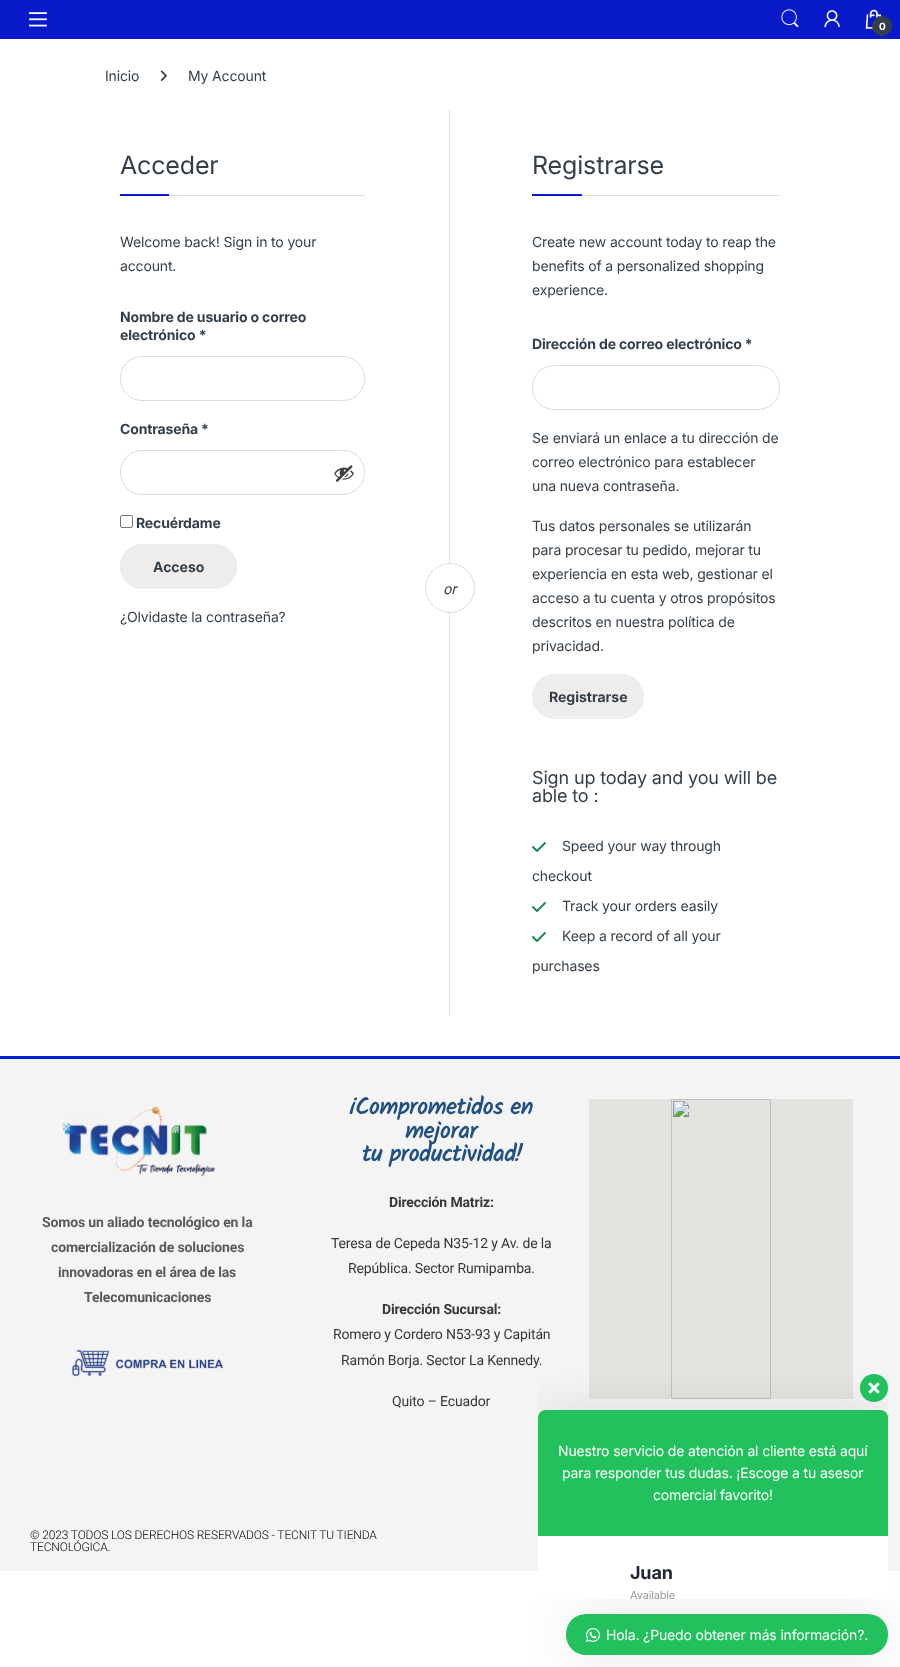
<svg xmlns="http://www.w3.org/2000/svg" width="900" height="1667">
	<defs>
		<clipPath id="clip1"><rect x="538" y="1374" width="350" height="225" /></clipPath>
		<clipPath id="clip2"><rect x="538" y="1374" width="350" height="225" /></clipPath>
	</defs>
	<rect width="100%" height="100%" fill="#FFFFFF" />
	<rect x="0" y="0" width="900" height="39" fill="#091ACB" />
	<image x="29" y="12" width="18" height="15" href="assets/img1.png" />
	<image x="781" y="9" width="18" height="19" href="assets/img2.png" />
	<image x="824" y="10" width="16" height="18" href="assets/img3.png" />
	<image x="865" y="9" width="17" height="20" href="assets/img4.png" />
	<circle cx="882" cy="26" r="10" fill="#333E48" />
	<text x="879" y="30" font-family="Inter" font-size="10" font-weight="700" letter-spacing="-0.15" fill="#FFFFFF">0</text>
	<text x="105" y="81" font-family="Inter" font-size="14" letter-spacing="-0.15" fill="#333E48">Inicio</text>
	<image x="160" y="70" width="7" height="11" href="assets/img5.png" />
	<text x="188" y="81" font-family="Inter" font-size="14" letter-spacing="-0.15" fill="#333E48">My Account</text>
	<rect x="169" y="195" width="196" height="1" fill="#DDDDDD" />
	<text x="120" y="174" font-family="Inter" font-size="25" letter-spacing="-0.15" fill="#333E48">Acceder</text>
	<rect x="120" y="194" width="49" height="2" fill="#091ACB" />
	<g font-family="Inter" font-size="14" letter-spacing="-0.15" fill="#333E48">
		<text x="120" y="247">Welcome back! Sign in to your</text>
		<text x="120" y="271">account.</text>
	</g>
	<g font-family="Inter" font-size="14" font-weight="700" letter-spacing="-0.15" fill="#333E48">
		<text x="120" y="322">Nombre de usuario o correo</text>
		<text x="120" y="340">electrónico *</text>
	</g>
	<rect x="120.5" y="356.5" width="244" height="44" rx="21.5" fill="none" stroke="#DDDDDD" />
	<text x="120" y="434" font-family="Inter" font-size="14" font-weight="700" letter-spacing="-0.15" fill="#333E48">Contraseña *</text>
	<rect x="120.5" y="450.5" width="244" height="44" rx="21.5" fill="none" stroke="#DDDDDD" />
	<image x="334" y="465" width="20" height="17" href="assets/img6.png" />
	<rect x="120.5" y="515.5" width="12" height="12" rx="1.5" fill="none" stroke="#767676" />
	<text x="136" y="528" font-family="Inter" font-size="14" font-weight="700" letter-spacing="-0.15" fill="#333E48">Recuérdame</text>
	<rect x="120.5" y="544.5" width="116" height="44" rx="21.5" fill="#EFECEC" stroke="#EFECEC" />
	<text x="153" y="572" font-family="Inter" font-size="14" font-weight="700" fill="#333E48">Acceso</text>
	<text x="120" y="622" font-family="Inter" font-size="14" letter-spacing="-0.15" fill="#333E48">¿Olvidaste la contraseña?</text>
	<rect x="449" y="110" width="1" height="906" fill="#DDDDDD" />
	<rect x="582" y="195" width="198" height="1" fill="#DDDDDD" />
	<text x="532" y="174" font-family="Inter" font-size="25" letter-spacing="-0.15" fill="#333E48">Registrarse</text>
	<rect x="532" y="194" width="50" height="2" fill="#091ACB" />
	<g font-family="Inter" font-size="14" letter-spacing="-0.15" fill="#333E48">
		<text x="532" y="247">Create new account today to reap the</text>
		<text x="532" y="271">benefits of a personalized shopping</text>
		<text x="532" y="295">experience.</text>
	</g>
	<text x="532" y="349" font-family="Inter" font-size="14" font-weight="700" letter-spacing="-0.15" fill="#333E48">Dirección de correo electrónico *</text>
	<rect x="532.5" y="365.5" width="247" height="44" rx="21.5" fill="none" stroke="#DDDDDD" />
	<g font-family="Inter" font-size="14" letter-spacing="-0.15" fill="#333E48">
		<text x="532" y="443">Se enviará un enlace a tu dirección de</text>
		<text x="532" y="467">correo electrónico para establecer</text>
		<text x="532" y="491">una nueva contraseña.</text>
		<text x="532" y="531">Tus datos personales se utilizarán</text>
		<text x="532" y="555">para procesar tu pedido, mejorar tu</text>
		<text x="532" y="579">experiencia en esta web, gestionar el</text>
		<text x="532" y="603">acceso a tu cuenta y otros propósitos</text>
		<text x="532" y="627">descritos en nuestra política de</text>
		<text x="532" y="651">privacidad.</text>
	</g>
	<rect x="532.5" y="674.5" width="111" height="44" rx="21.5" fill="#EFECEC" stroke="#EFECEC" />
	<text x="549" y="702" font-family="Inter" font-size="14" font-weight="700" fill="#333E48">Registrarse</text>
	<g font-family="Inter" font-size="18" letter-spacing="-0.15" fill="#333E48">
		<text x="532" y="784">Sign up today and you will be</text>
		<text x="532" y="802">able to :</text>
	</g>
	<image x="532" y="842" width="14" height="10" href="assets/img7.png" />
	<g font-family="Inter" font-size="14" letter-spacing="-0.15" fill="#333E48">
		<text x="562" y="851">Speed your way through</text>
		<text x="532" y="881">checkout</text>
	</g>
	<image x="532" y="902" width="14" height="10" href="assets/img7.png" />
	<text x="562" y="911" font-family="Inter" font-size="14" letter-spacing="-0.15" fill="#333E48">Track your orders easily</text>
	<image x="532" y="932" width="14" height="10" href="assets/img7.png" />
	<g font-family="Inter" font-size="14" letter-spacing="-0.15" fill="#333E48">
		<text x="562" y="941">Keep a record of all your</text>
		<text x="532" y="971">purchases</text>
	</g>
	<circle cx="450" cy="588" r="24.5" fill="#FFFFFF" stroke="#DDDDDD" />
	<text x="443" y="594" font-family="Inter" font-size="14" font-style="italic" letter-spacing="-0.15" fill="#333E48">or</text>
	<rect x="0" y="1059" width="900" height="512" fill="#F4F4F4" />
	<rect x="0" y="1056" width="900" height="3" fill="#0220D3" />
	<image x="62" y="1106" width="153" height="71" href="assets/img8.png" />
	<g font-family="Roboto" font-size="14" font-weight="700" letter-spacing="-0.15" fill="#5A5A5A">
		<text x="42" y="1227">Somos un aliado tecnológico en la</text>
		<text x="51" y="1252">comercialización de soluciones</text>
		<text x="58" y="1277">innovadoras en el área de las</text>
		<text x="84" y="1302">Telecomunicaciones</text>
	</g>
	<image x="72" y="1349" width="151" height="28" href="assets/img9.png" />
	<g font-family="Solitreo" font-size="23.5" font-weight="700" letter-spacing="-0.15" fill="#215083">
		<text x="350" y="1114">¡Comprometidos en</text>
		<text x="405" y="1138">mejorar</text>
		<text x="362" y="1161">tu productividad!</text>
	</g>
	<text x="389" y="1207" font-family="Roboto" font-size="14" font-weight="700" letter-spacing="-0.15" fill="#373737">Dirección Matriz:</text>
	<g font-family="Roboto" font-size="14" letter-spacing="-0.15" fill="#373737">
		<text x="331" y="1248">Teresa de Cepeda N35-12 y Av. de la</text>
		<text x="348" y="1273">República. Sector Rumipamba.</text>
	</g>
	<text x="382" y="1314" font-family="Roboto" font-size="14" font-weight="700" letter-spacing="-0.15" fill="#373737">Dirección Sucursal:</text>
	<g font-family="Roboto" font-size="14" letter-spacing="-0.15" fill="#373737">
		<text x="333" y="1339">Romero y Cordero N53-93 y Capitán</text>
		<text x="341" y="1365">Ramón Borja. Sector La Kennedy.</text>
		<text x="392" y="1406">Quito – Ecuador</text>
	</g>
	<image x="589" y="1099" width="264" height="300" href="assets/img10.png" />
	<g font-family="Roboto" font-size="12" font-weight="300" letter-spacing="-0.15" fill="#000000">
		<text x="30" y="1539">© 2023 TODOS LOS DERECHOS RESERVADOS - TECNIT TU TIENDA</text>
		<text x="30" y="1551">TECNOLÓGICA.</text>
	</g>
	<g clip-path="url(#clip1)">
		<rect x="538" y="1410" width="350" height="126" rx="8" fill="#000000" fill-opacity="0.1" filter="blur(25px)" />
	</g>
	<circle cx="874" cy="1388" r="14" fill="#22C15E" />
	<image x="868" y="1382" width="12" height="12" href="assets/img11.png" />
	<path d="M546 1410H880C884.5 1410 888 1413.5 888 1418V1536H538V1418C538 1413.5 541.5 1410 546 1410Z" fill="#22C15E" />
	<g font-family="Inter" font-size="14" letter-spacing="-0.15" fill="#FFFFFF">
		<text x="558" y="1456">Nuestro servicio de atención al cliente está aquí</text>
		<text x="562" y="1478">para responder tus dudas. ¡Escoge a tu asesor</text>
		<text x="653" y="1500">comercial favorito!</text>
	</g>
	<rect x="566" y="1614" width="322" height="41" rx="20" fill="#000000" fill-opacity="0.1" filter="blur(25px)" />
	<rect x="538" y="1536" width="350" height="63" fill="#FFFFFF" />
	<text x="630" y="1579" font-family="Inter" font-size="18" font-weight="700" letter-spacing="-0.15" fill="#222831">Juan</text>
	<g clip-path="url(#clip2)">
		<text x="630" y="1599" font-family="Inter" font-size="11" letter-spacing="-0.15" fill="#999999">Available</text>
	</g>
	<rect x="566" y="1614" width="322" height="41" rx="20" fill="#22C15E" />
	<image x="586" y="1628" width="14" height="14" href="assets/img12.png" />
	<text x="606" y="1640" font-family="Inter" font-size="14" letter-spacing="-0.15" fill="#FFFFFF">Hola. ¿Puedo obtener más información?.</text>
</svg>
